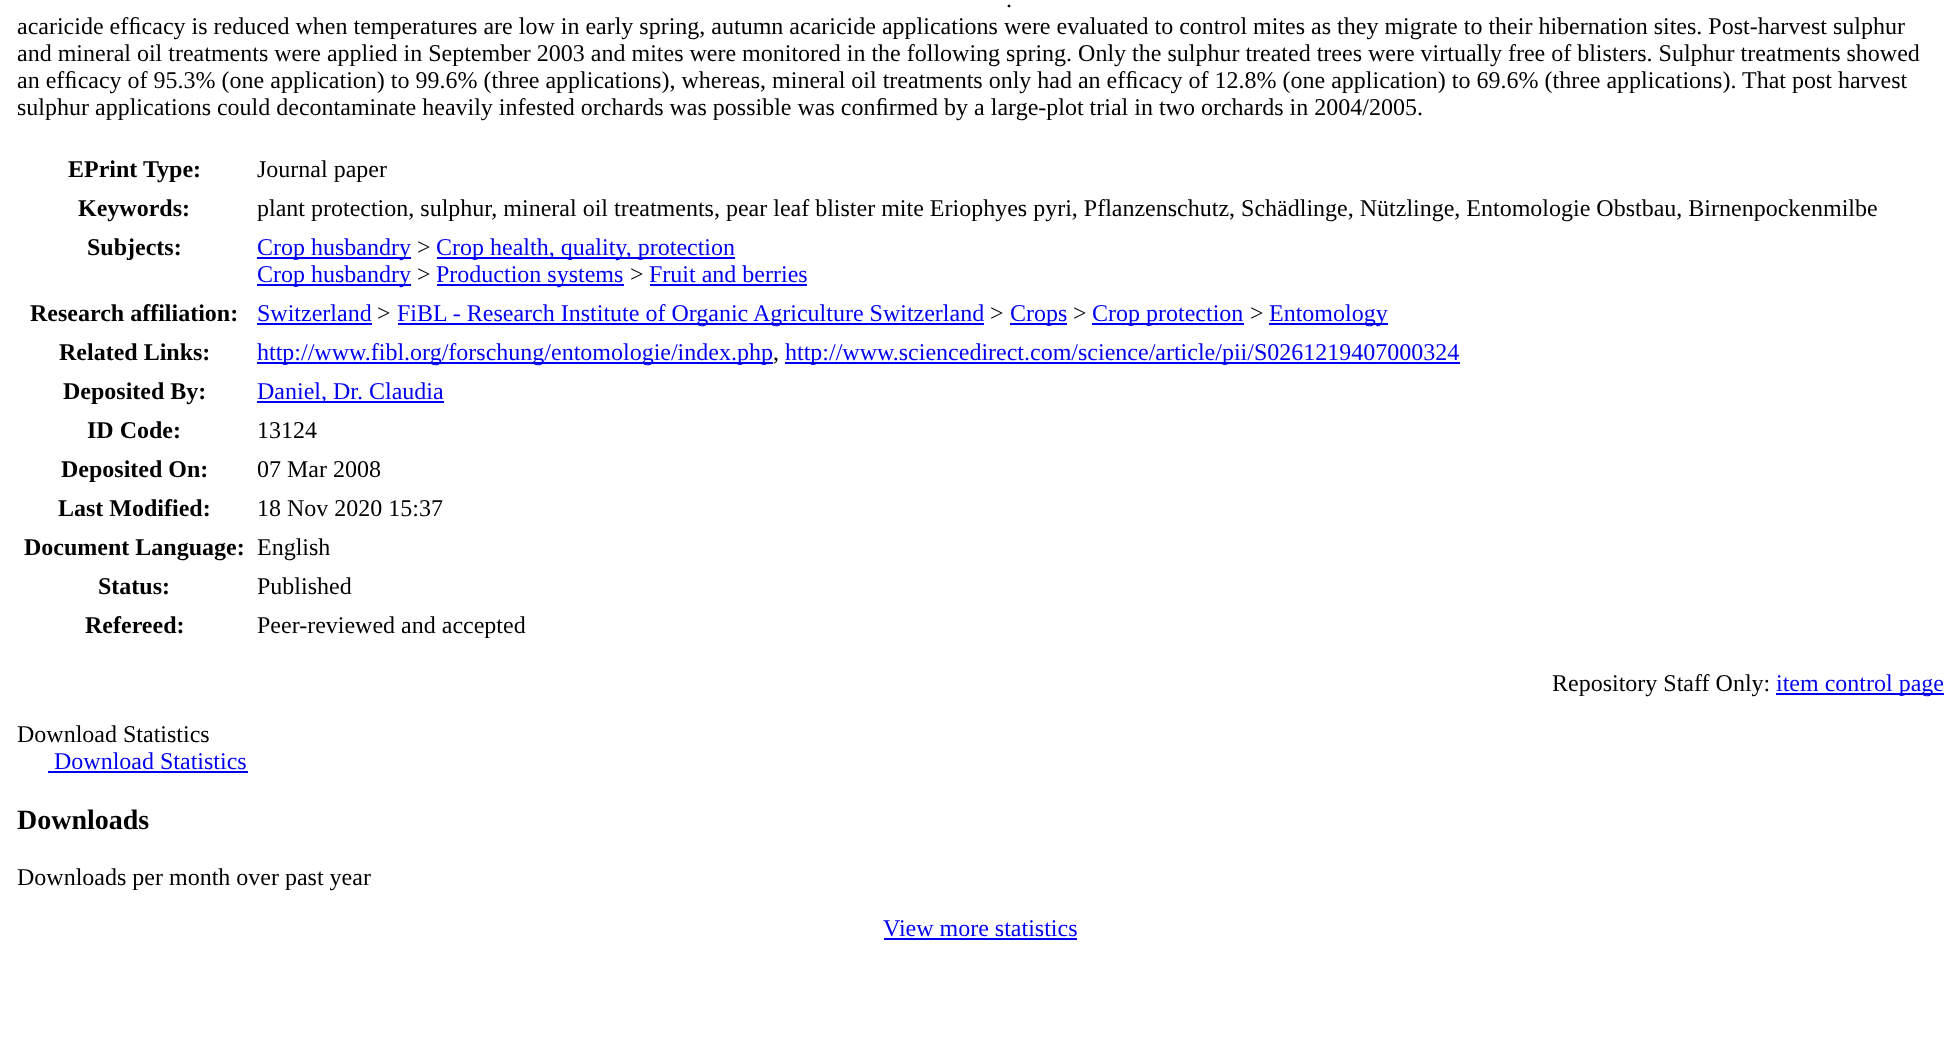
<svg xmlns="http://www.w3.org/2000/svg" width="1960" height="1056">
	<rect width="100%" height="100%" fill="#FFFFFF" />
	<g font-family="Liberation Serif" font-size="24" fill="#000000">
		<text x="1006" y="7">.</text>
		<text x="17" y="34">acaricide efﬁcacy is reduced when temperatures are low in early spring, autumn acaricide applications were evaluated to control mites as they migrate to their hibernation sites. Post-harvest sulphur</text>
		<text x="17" y="61">and mineral oil treatments were applied in September 2003 and mites were monitored in the following spring. Only the sulphur treated trees were virtually free of blisters. Sulphur treatments showed</text>
		<text x="17" y="88">an efﬁcacy of 95.3% (one application) to 99.6% (three applications), whereas, mineral oil treatments only had an efﬁcacy of 12.8% (one application) to 69.6% (three applications). That post harvest</text>
		<text x="17" y="115">sulphur applications could decontaminate heavily infested orchards was possible was conﬁrmed by a large-plot trial in two orchards in 2004/2005.</text>
	</g>
	<text x="68" y="177" font-family="Liberation Serif" font-size="24" font-weight="700" fill="#000000">EPrint Type:</text>
	<text x="257" y="177" font-family="Liberation Serif" font-size="24" fill="#000000">Journal paper</text>
	<text x="78" y="216" font-family="Liberation Serif" font-size="24" font-weight="700" fill="#000000">Keywords:</text>
	<text x="257" y="216" font-family="Liberation Serif" font-size="24" fill="#000000">plant protection, sulphur, mineral oil treatments, pear leaf blister mite Eriophyes pyri, Pflanzenschutz, Schädlinge, Nützlinge, Entomologie Obstbau, Birnenpockenmilbe</text>
	<text x="87" y="255" font-family="Liberation Serif" font-size="24" font-weight="700" fill="#000000">Subjects:</text>
	<rect x="257" y="257" width="154" height="2" fill="#0000EE" />
	<text x="257" y="255" font-family="Liberation Serif" font-size="24" fill="#0000EE">Crop husbandry</text>
	<text x="417" y="255" font-family="Liberation Serif" font-size="24" fill="#000000">&gt;</text>
	<rect x="437" y="257" width="298" height="2" fill="#0000EE" />
	<text x="436" y="255" font-family="Liberation Serif" font-size="24" fill="#0000EE">Crop health, quality, protection</text>
	<rect x="257" y="284" width="154" height="2" fill="#0000EE" />
	<text x="257" y="282" font-family="Liberation Serif" font-size="24" fill="#0000EE">Crop husbandry</text>
	<text x="417" y="282" font-family="Liberation Serif" font-size="24" fill="#000000">&gt;</text>
	<rect x="437" y="284" width="187" height="2" fill="#0000EE" />
	<text x="436" y="282" font-family="Liberation Serif" font-size="24" fill="#0000EE">Production systems</text>
	<text x="630" y="282" font-family="Liberation Serif" font-size="24" fill="#000000">&gt;</text>
	<text x="649" y="282" font-family="Liberation Serif" font-size="24" fill="#0000EE">Fruit and berries</text>
	<rect x="650" y="284" width="157" height="2" fill="#0000EE" />
	<text x="30" y="321" font-family="Liberation Serif" font-size="24" font-weight="700" fill="#000000">Research affiliation:</text>
	<text x="257" y="321" font-family="Liberation Serif" font-size="24" fill="#0000EE">Switzerland</text>
	<rect x="257" y="323" width="115" height="2" fill="#0000EE" />
	<text x="377" y="321" font-family="Liberation Serif" font-size="24" fill="#000000">&gt;</text>
	<rect x="398" y="323" width="586" height="2" fill="#0000EE" />
	<text x="397" y="321" font-family="Liberation Serif" font-size="24" fill="#0000EE">FiBL - Research Institute of Organic Agriculture Switzerland</text>
	<text x="990" y="321" font-family="Liberation Serif" font-size="24" fill="#000000">&gt;</text>
	<rect x="1010" y="323" width="57" height="2" fill="#0000EE" />
	<text x="1010" y="321" font-family="Liberation Serif" font-size="24" fill="#0000EE">Crops</text>
	<text x="1073" y="321" font-family="Liberation Serif" font-size="24" fill="#000000">&gt;</text>
	<rect x="1092" y="323" width="152" height="2" fill="#0000EE" />
	<text x="1092" y="321" font-family="Liberation Serif" font-size="24" fill="#0000EE">Crop protection</text>
	<text x="1250" y="321" font-family="Liberation Serif" font-size="24" fill="#000000">&gt;</text>
	<rect x="1269" y="323" width="119" height="2" fill="#0000EE" />
	<text x="1269" y="321" font-family="Liberation Serif" font-size="24" fill="#0000EE">Entomology</text>
	<text x="59" y="360" font-family="Liberation Serif" font-size="24" font-weight="700" fill="#000000">Related Links:</text>
	<rect x="257" y="362" width="516" height="2" fill="#0000EE" />
	<text x="257" y="360" font-family="Liberation Serif" font-size="24" fill="#0000EE">http://www.fibl.org/forschung/entomologie/index.php</text>
	<text x="773" y="360" font-family="Liberation Serif" font-size="24" fill="#000000">,</text>
	<rect x="785" y="362" width="675" height="2" fill="#0000EE" />
	<text x="785" y="360" font-family="Liberation Serif" font-size="24" fill="#0000EE">http://www.sciencedirect.com/science/article/pii/S0261219407000324</text>
	<text x="63" y="399" font-family="Liberation Serif" font-size="24" font-weight="700" fill="#000000">Deposited By:</text>
	<rect x="257" y="401" width="187" height="2" fill="#0000EE" />
	<text x="257" y="399" font-family="Liberation Serif" font-size="24" fill="#0000EE">Daniel, Dr. Claudia</text>
	<text x="87" y="438" font-family="Liberation Serif" font-size="24" font-weight="700" fill="#000000">ID Code:</text>
	<text x="257" y="438" font-family="Liberation Serif" font-size="24" fill="#000000">13124</text>
	<text x="61" y="477" font-family="Liberation Serif" font-size="24" font-weight="700" fill="#000000">Deposited On:</text>
	<text x="257" y="477" font-family="Liberation Serif" font-size="24" fill="#000000">07 Mar 2008</text>
	<text x="58" y="516" font-family="Liberation Serif" font-size="24" font-weight="700" fill="#000000">Last Modified:</text>
	<text x="257" y="516" font-family="Liberation Serif" font-size="24" fill="#000000">18 Nov 2020 15:37</text>
	<text x="24" y="555" font-family="Liberation Serif" font-size="24" font-weight="700" fill="#000000">Document Language:</text>
	<text x="257" y="555" font-family="Liberation Serif" font-size="24" fill="#000000">English</text>
	<text x="98" y="594" font-family="Liberation Serif" font-size="24" font-weight="700" fill="#000000">Status:</text>
	<text x="257" y="594" font-family="Liberation Serif" font-size="24" fill="#000000">Published</text>
	<text x="85" y="633" font-family="Liberation Serif" font-size="24" font-weight="700" fill="#000000">Refereed:</text>
	<g font-family="Liberation Serif" font-size="24" fill="#000000">
		<text x="257" y="633">Peer-reviewed and accepted</text>
		<text x="1552" y="691">Repository Staff Only:</text>
	</g>
	<rect x="1776" y="693" width="168" height="2" fill="#0000EE" />
	<text x="1776" y="691" font-family="Liberation Serif" font-size="24" fill="#0000EE">item control page</text>
	<text x="17" y="742" font-family="Liberation Serif" font-size="24" fill="#000000">Download Statistics</text>
	<text x="54" y="769" font-family="Liberation Serif" font-size="24" fill="#0000EE">Download Statistics</text>
	<rect x="48" y="771" width="200" height="2" fill="#0000EE" />
	<text x="17" y="829" font-family="Liberation Serif" font-size="28" font-weight="700" fill="#000000">Downloads</text>
	<text x="17" y="885" font-family="Liberation Serif" font-size="24" fill="#000000">Downloads per month over past year</text>
	<text x="883" y="936" font-family="Liberation Serif" font-size="24" fill="#0000EE">View more statistics</text>
	<rect x="884" y="938" width="193" height="2" fill="#0000EE" />
</svg>
